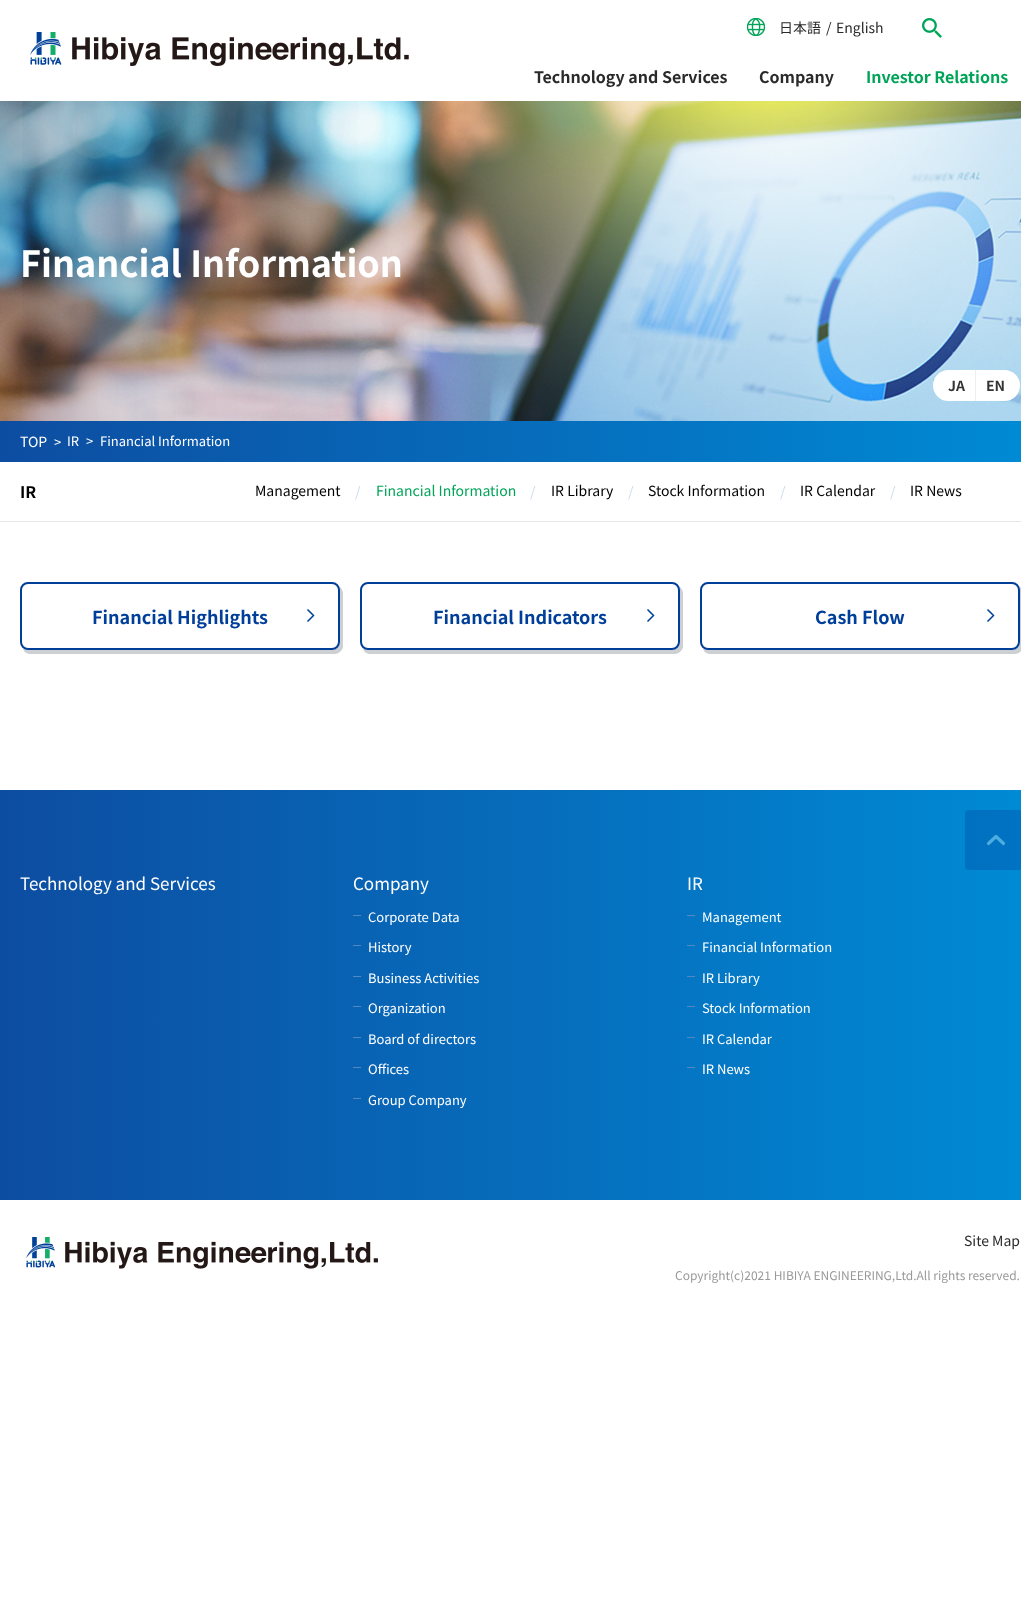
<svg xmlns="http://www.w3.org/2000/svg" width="1021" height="1621">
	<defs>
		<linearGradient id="g1" gradientUnits="userSpaceOnUse" x1="0" y1="995" x2="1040" y2="995"><stop offset="0" stop-color="#0D4DA1" /><stop offset="1" stop-color="#008BD5" /></linearGradient>
		<linearGradient id="g2" gradientUnits="userSpaceOnUse" x1="0" y1="442" x2="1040" y2="441"><stop offset="0" stop-color="#0D4DA1" /><stop offset="1" stop-color="#008BD5" /></linearGradient>
	</defs>
	<rect width="100%" height="100%" fill="#FFFFFF" />
	<image x="747" y="18" width="18" height="18" href="assets/img1.png" />
	<g font-family="Noto Sans JP" font-size="14" fill="#2A2A2A">
		<text x="779" y="33">日本語</text>
		<text x="826" y="33">/</text>
		<text x="836" y="33">English</text>
	</g>
	<image x="922" y="18" width="20" height="20" href="assets/img2.png" />
	<image x="30" y="32" width="379" height="34" href="assets/img3.png" />
	<g font-family="Noto Sans JP" font-size="16" font-weight="700" fill="#2A2A2A">
		<text x="534" y="83">Technology and Services</text>
		<text x="759" y="83">Company</text>
	</g>
	<text x="866" y="83" font-family="Noto Sans JP" font-size="16" font-weight="700" fill="#00A458">Investor Relations</text>
	<rect x="0" y="790" width="1021" height="410" fill="url(#g1)" />
	<rect x="965" y="810" width="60" height="60" rx="4" fill="#004098" fill-opacity="0.3" />
	<path d="M1003.5 843.5L996 836.5L988.5 843.5" fill="none" stroke="#4DACE0" stroke-width="3.2" stroke-linecap="round" stroke-linejoin="round" />
	<g font-family="Noto Sans JP" font-size="17" fill="#FFFFFF">
		<text x="20" y="890">Technology and Services</text>
		<text x="353" y="890">Company</text>
	</g>
	<rect x="353" y="915" width="8" height="1" fill="#5587C1" />
	<text x="368" y="922" font-family="Noto Sans JP" font-size="13" fill="#FFFFFF">Corporate Data</text>
	<rect x="353" y="945" width="8" height="1" fill="#5587C1" />
	<text x="368" y="952" font-family="Noto Sans JP" font-size="13" fill="#FFFFFF">History</text>
	<rect x="353" y="976" width="8" height="1" fill="#5587C1" />
	<text x="368" y="983" font-family="Noto Sans JP" font-size="13" fill="#FFFFFF">Business Activities</text>
	<rect x="353" y="1006" width="8" height="1" fill="#5587C1" />
	<text x="368" y="1013" font-family="Noto Sans JP" font-size="13" fill="#FFFFFF">Organization</text>
	<rect x="353" y="1037" width="8" height="1" fill="#5587C1" />
	<text x="368" y="1044" font-family="Noto Sans JP" font-size="13" fill="#FFFFFF">Board of directors</text>
	<rect x="353" y="1067" width="8" height="1" fill="#5587C1" />
	<text x="368" y="1074" font-family="Noto Sans JP" font-size="13" fill="#FFFFFF">Offices</text>
	<rect x="353" y="1098" width="8" height="1" fill="#5587C1" />
	<text x="368" y="1105" font-family="Noto Sans JP" font-size="13" fill="#FFFFFF">Group Company</text>
	<text x="687" y="890" font-family="Noto Sans JP" font-size="17" fill="#FFFFFF">IR</text>
	<rect x="687" y="915" width="8" height="1" fill="#5587C1" />
	<text x="702" y="922" font-family="Noto Sans JP" font-size="13" fill="#FFFFFF">Management</text>
	<rect x="687" y="945" width="8" height="1" fill="#5587C1" />
	<text x="702" y="952" font-family="Noto Sans JP" font-size="13" fill="#FFFFFF">Financial Information</text>
	<rect x="687" y="976" width="8" height="1" fill="#5587C1" />
	<text x="702" y="983" font-family="Noto Sans JP" font-size="13" fill="#FFFFFF">IR Library</text>
	<rect x="687" y="1006" width="8" height="1" fill="#5587C1" />
	<text x="702" y="1013" font-family="Noto Sans JP" font-size="13" fill="#FFFFFF">Stock Information</text>
	<rect x="687" y="1037" width="8" height="1" fill="#5587C1" />
	<text x="702" y="1044" font-family="Noto Sans JP" font-size="13" fill="#FFFFFF">IR Calendar</text>
	<rect x="687" y="1067" width="8" height="1" fill="#5587C1" />
	<text x="702" y="1074" font-family="Noto Sans JP" font-size="13" fill="#FFFFFF">IR News</text>
	<image x="26" y="1237" width="352" height="32" href="assets/img4.png" />
	<text x="964" y="1246" font-family="Noto Sans JP" font-size="14" fill="#2A2A2A">Site Map</text>
	<text x="675" y="1280" font-family="Noto Sans JP" font-size="12" fill="#999999">Copyright(c)2021 HIBIYA ENGINEERING,Ltd.All rights reserved.</text>
	<image x="0" y="101" width="1021" height="320" href="assets/img5.png" />
	<text x="20" y="277" font-family="Noto Sans JP" font-size="36" font-weight="700" fill="#FFFFFF">Financial Information</text>
	<rect x="933" y="370" width="87" height="31" rx="15.5" fill="#FFFFFF" />
	<rect x="975" y="370" width="1" height="31" fill="#EEEEEE" />
	<g font-family="Noto Sans JP" font-size="14" font-weight="700" fill="#333333">
		<text x="948" y="391">JA</text>
		<text x="986" y="391">EN</text>
	</g>
	<rect x="0" y="421" width="1021" height="41" fill="url(#g2)" />
	<text x="20" y="447" font-family="Noto Sans JP" font-size="14" fill="#FFFFFF">TOP</text>
	<g font-family="Noto Sans JP" font-size="13" fill="#FFFFFF">
		<text x="54" y="447">&gt;</text>
		<text x="67" y="446">IR</text>
		<text x="86" y="446">&gt;</text>
		<text x="100" y="446">Financial Information</text>
	</g>
	<rect x="0" y="521" width="1021" height="1" fill="#E5E6E9" />
	<text x="20" y="498" font-family="Noto Sans JP" font-size="16" font-weight="700" fill="#000000">IR</text>
	<text x="255" y="496" font-family="Noto Sans JP" font-size="14" fill="#000000">Management</text>
	<text x="355" y="497" font-family="Noto Sans JP" font-size="14" fill="#CCDCEF">/</text>
	<text x="376" y="496" font-family="Noto Sans JP" font-size="14" fill="#00A458">Financial Information</text>
	<text x="530" y="497" font-family="Noto Sans JP" font-size="14" fill="#CCDCEF">/</text>
	<text x="551" y="496" font-family="Noto Sans JP" font-size="14" fill="#000000">IR Library</text>
	<text x="628" y="497" font-family="Noto Sans JP" font-size="14" fill="#CCDCEF">/</text>
	<text x="648" y="496" font-family="Noto Sans JP" font-size="14" fill="#000000">Stock Information</text>
	<text x="780" y="497" font-family="Noto Sans JP" font-size="14" fill="#CCDCEF">/</text>
	<text x="800" y="496" font-family="Noto Sans JP" font-size="14" fill="#000000">IR Calendar</text>
	<text x="890" y="497" font-family="Noto Sans JP" font-size="14" fill="#CCDCEF">/</text>
	<text x="910" y="496" font-family="Noto Sans JP" font-size="14" fill="#000000">IR News</text>
	<path d="M23 649C24 652 27 654 31 654H335C339 654 343 650 343 646V594C343 591 342 589 340 587V590V642C340 646 336 650 332 650H28C26 650 25 649 23 649Z" fill="#CDD0D3" />
	<rect x="21" y="583" width="318" height="66" rx="7" fill="#FFFFFF" stroke="#003F99" stroke-width="2" />
	<text x="92" y="624" font-family="Noto Sans JP" font-size="18" font-weight="700" fill="#003F99">Financial Highlights</text>
	<path d="M307.5 621.5L313.5 615.5L307.5 609.5" fill="none" stroke="#004098" stroke-width="1.5" />
	<path d="M363 649C364 652 367 654 371 654H675C679 654 683 650 683 646V594C683 591 682 589 680 587V590V642C680 646 676 650 672 650H368C366 650 365 649 363 649Z" fill="#CDD0D3" />
	<rect x="361" y="583" width="318" height="66" rx="7" fill="#FFFFFF" stroke="#003F99" stroke-width="2" />
	<text x="433" y="624" font-family="Noto Sans JP" font-size="18" font-weight="700" fill="#003F99">Financial Indicators</text>
	<path d="M647.5 621.5L653.5 615.5L647.5 609.5" fill="none" stroke="#004098" stroke-width="1.5" />
	<path d="M703 649C704 652 707 654 711 654H1015C1019 654 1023 650 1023 646V594C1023 591 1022 589 1020 587V590V642C1020 646 1016 650 1012 650H708C706 650 705 649 703 649Z" fill="#CDD0D3" />
	<rect x="701" y="583" width="318" height="66" rx="7" fill="#FFFFFF" stroke="#003F99" stroke-width="2" />
	<text x="815" y="624" font-family="Noto Sans JP" font-size="18" font-weight="700" fill="#003F99">Cash Flow</text>
	<path d="M987.5 621.5L993.5 615.5L987.5 609.5" fill="none" stroke="#004098" stroke-width="1.5" />
</svg>
